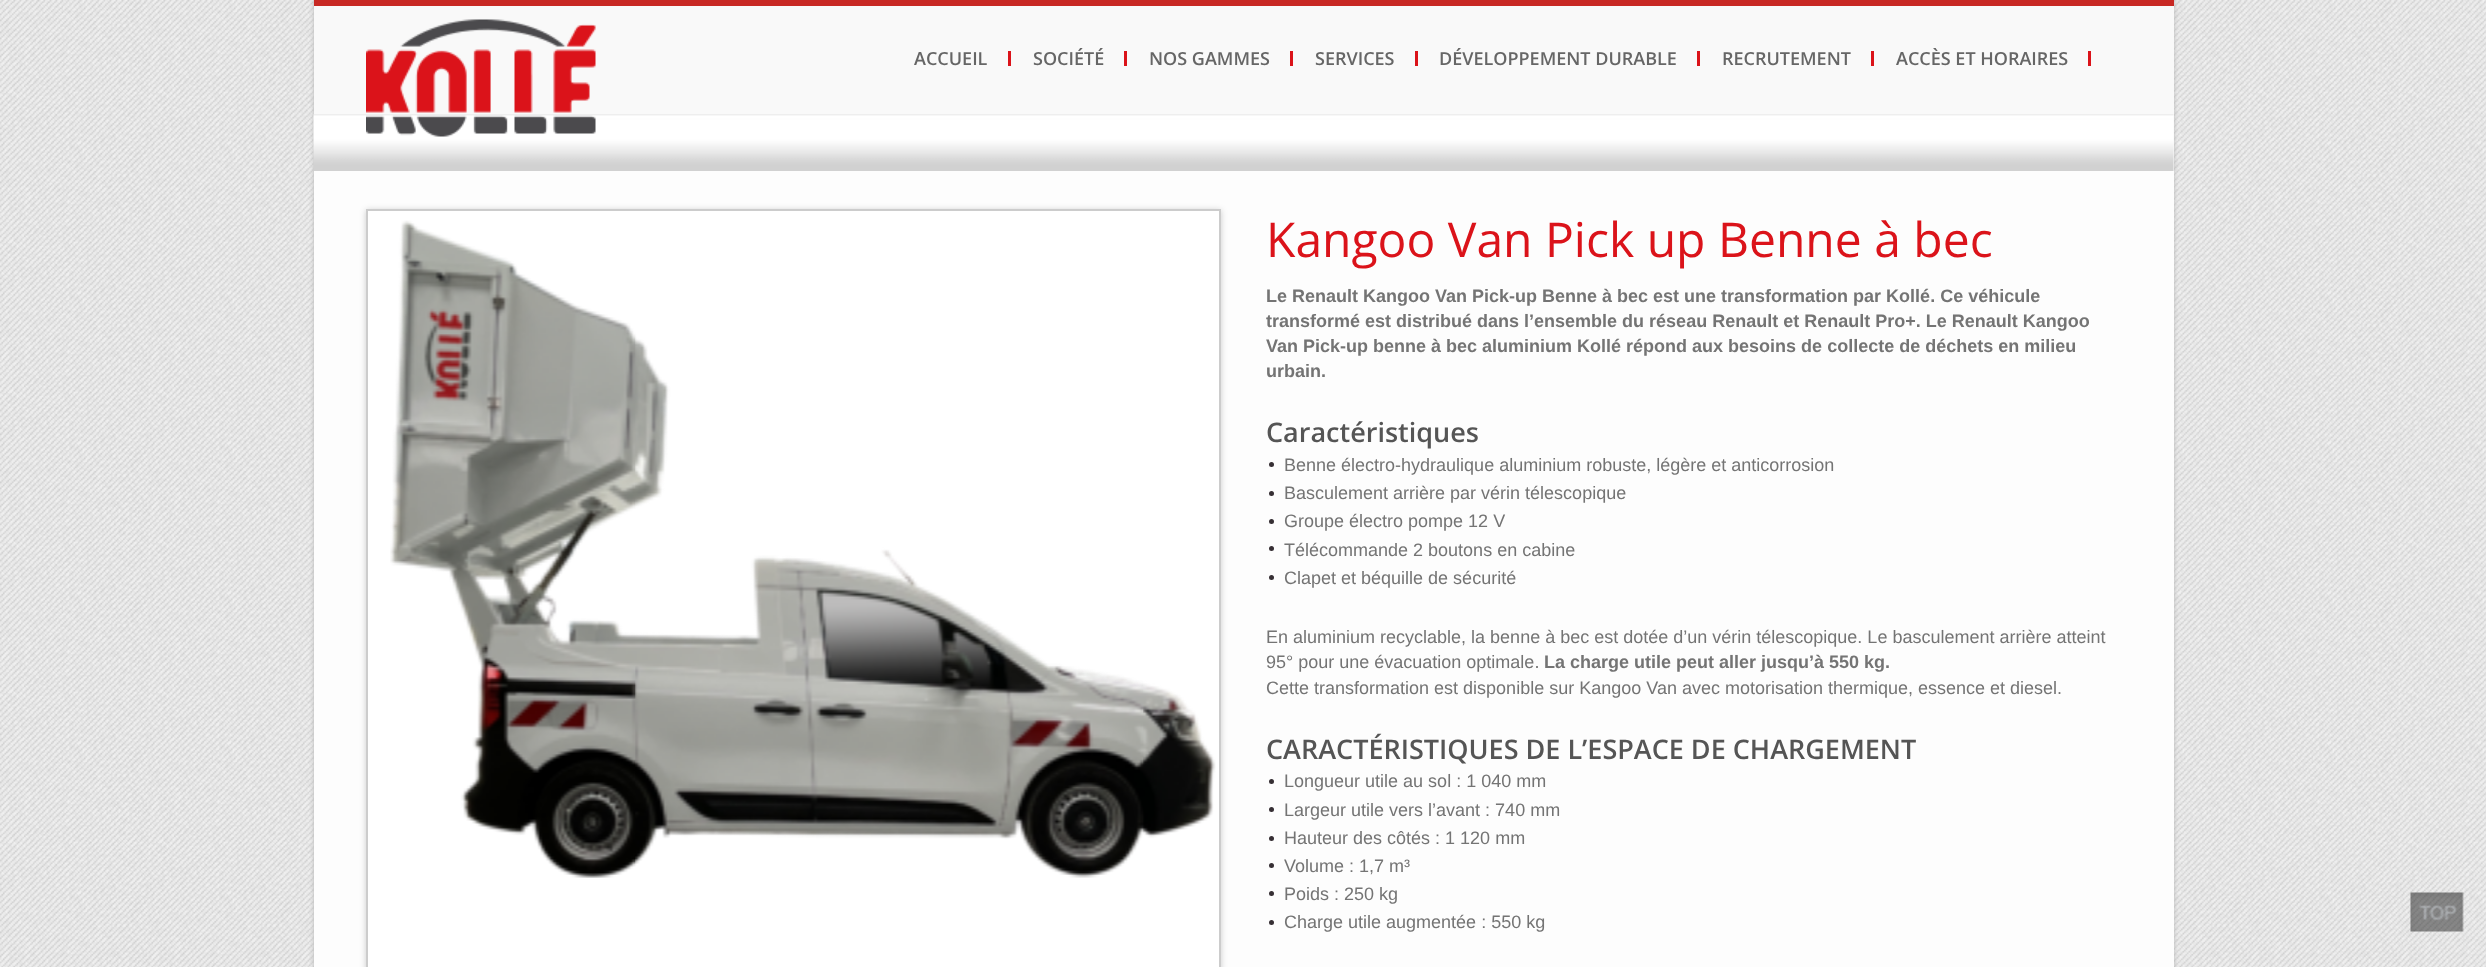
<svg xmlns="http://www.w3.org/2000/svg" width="2486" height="967">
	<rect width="100%" height="100%" fill="#FFFFFF" />
	<image x="0" y="0" width="2486" height="967" href="assets/img1.png" />
	<rect x="314" y="0" width="1860" height="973" fill="#B4B4B4" filter="blur(2px)" />
	<rect x="314" y="171" width="1860" height="796" fill="#FDFDFD" />
	<rect x="314" y="0" width="1860" height="6" fill="#C82924" />
	<rect x="314" y="6" width="1860" height="165" fill="#F9F9F9" />
	<image x="313" y="114" width="1861" height="57" href="assets/img2.png" />
	<image x="366" y="19" width="230" height="118" href="assets/img3.png" />
	<text x="914" y="65" font-family="Open Sans" font-size="18" font-weight="600" fill="#666666">ACCUEIL</text>
	<rect x="1008" y="51" width="3" height="15" fill="#DB131A" />
	<text x="1033" y="65" font-family="Open Sans" font-size="18" font-weight="600" fill="#666666">SOCIÉTÉ</text>
	<rect x="1124" y="51" width="3" height="15" fill="#DB131A" />
	<text x="1149" y="65" font-family="Open Sans" font-size="18" font-weight="600" fill="#666666">NOS GAMMES</text>
	<rect x="1290" y="51" width="3" height="15" fill="#DB131A" />
	<text x="1315" y="65" font-family="Open Sans" font-size="18" font-weight="600" fill="#666666">SERVICES</text>
	<rect x="1415" y="51" width="3" height="15" fill="#DB131A" />
	<text x="1439" y="65" font-family="Open Sans" font-size="18" font-weight="600" fill="#666666">DÉVELOPPEMENT DURABLE</text>
	<rect x="1697" y="51" width="3" height="15" fill="#DB131A" />
	<text x="1722" y="65" font-family="Open Sans" font-size="18" font-weight="600" fill="#666666">RECRUTEMENT</text>
	<rect x="1871" y="51" width="3" height="15" fill="#DB131A" />
	<text x="1896" y="65" font-family="Open Sans" font-size="18" font-weight="600" fill="#666666">ACCÈS ET HORAIRES</text>
	<rect x="2088" y="51" width="3" height="15" fill="#DB131A" />
	<rect x="366" y="210" width="855" height="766" fill="#000000" fill-opacity="0.2" filter="blur(3px)" />
	<rect x="367" y="210" width="853" height="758" fill="#FFFFFF" stroke="#CCCCCC" stroke-width="2" />
	<image x="390" y="220" width="826" height="658" href="assets/img4.png" />
	<text x="1266" y="257" font-family="Open Sans" font-size="48" fill="#DB131A">Kangoo Van Pick up Benne à bec</text>
	<g font-family="Liberation Sans" font-size="18" font-weight="700" fill="#747474">
		<text x="1266" y="302">Le Renault Kangoo Van Pick-up Benne à bec est une transformation par Kollé. Ce véhicule</text>
		<text x="1266" y="327">transformé est distribué dans l’ensemble du réseau Renault et Renault Pro+. Le Renault Kangoo</text>
		<text x="1266" y="352">Van Pick-up benne à bec aluminium Kollé répond aux besoins de collecte de déchets en milieu</text>
		<text x="1266" y="377">urbain.</text>
	</g>
	<text x="1266" y="442" font-family="Open Sans" font-size="27" font-weight="600" fill="#555555">Caractéristiques</text>
	<circle cx="1271.5" cy="464.5" r="2.5" fill="#362F34" />
	<text x="1284" y="471" font-family="Liberation Sans" font-size="18" fill="#747474">Benne électro-hydraulique aluminium robuste, légère et anticorrosion</text>
	<circle cx="1271.5" cy="493.5" r="2.5" fill="#362F34" />
	<text x="1284" y="499" font-family="Liberation Sans" font-size="18" fill="#747474">Basculement arrière par vérin télescopique</text>
	<circle cx="1271.5" cy="521.5" r="2.5" fill="#362F34" />
	<text x="1284" y="527" font-family="Liberation Sans" font-size="18" fill="#747474">Groupe électro pompe 12 V</text>
	<circle cx="1271.5" cy="548.5" r="2.5" fill="#362F34" />
	<text x="1284" y="556" font-family="Liberation Sans" font-size="18" fill="#747474">Télécommande 2 boutons en cabine</text>
	<circle cx="1271.5" cy="577.5" r="2.5" fill="#362F34" />
	<g font-family="Liberation Sans" font-size="18" fill="#747474">
		<text x="1284" y="584">Clapet et béquille de sécurité</text>
		<text x="1266" y="643">En aluminium recyclable, la benne à bec est dotée d’un vérin télescopique. Le basculement arrière atteint</text>
		<text x="1266" y="668">95° pour une évacuation optimale.</text>
	</g>
	<text x="1544" y="668" font-family="Liberation Sans" font-size="18" font-weight="700" fill="#747474">La charge utile peut aller jusqu’à 550 kg.</text>
	<text x="1266" y="694" font-family="Liberation Sans" font-size="18" fill="#747474">Cette transformation est disponible sur Kangoo Van avec motorisation thermique, essence et diesel.</text>
	<text x="1266" y="759" font-family="Open Sans" font-size="27" font-weight="600" fill="#555555">CARACTÉRISTIQUES DE L’ESPACE DE CHARGEMENT</text>
	<circle cx="1271.5" cy="781.5" r="2.5" fill="#362F34" />
	<text x="1284" y="787" font-family="Liberation Sans" font-size="18" fill="#747474">Longueur utile au sol : 1 040 mm</text>
	<circle cx="1271.5" cy="809.5" r="2.5" fill="#362F34" />
	<text x="1284" y="816" font-family="Liberation Sans" font-size="18" fill="#747474">Largeur utile vers l’avant : 740 mm</text>
	<circle cx="1271.5" cy="838.5" r="2.5" fill="#362F34" />
	<text x="1284" y="844" font-family="Liberation Sans" font-size="18" fill="#747474">Hauteur des côtés : 1 120 mm</text>
	<circle cx="1271.5" cy="865.5" r="2.5" fill="#362F34" />
	<text x="1284" y="872" font-family="Liberation Sans" font-size="18" fill="#747474">Volume : 1,7 m³</text>
	<circle cx="1271.5" cy="893.5" r="2.5" fill="#362F34" />
	<text x="1284" y="900" font-family="Liberation Sans" font-size="18" fill="#747474">Poids : 250 kg</text>
	<circle cx="1271.5" cy="922.5" r="2.5" fill="#362F34" />
	<text x="1284" y="928" font-family="Liberation Sans" font-size="18" fill="#747474">Charge utile augmentée : 550 kg</text>
	<image x="2410" y="892" width="54" height="40" href="assets/img5.png" />
</svg>
